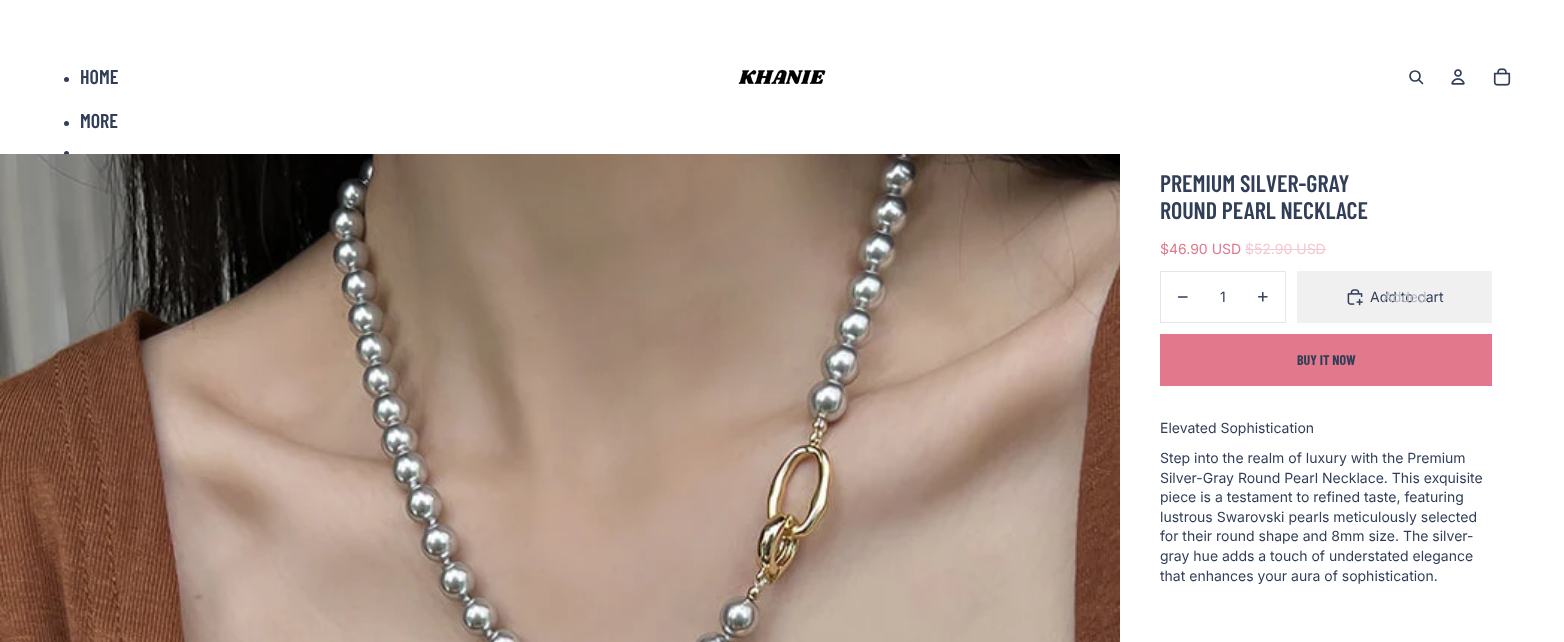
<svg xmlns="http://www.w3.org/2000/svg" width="1564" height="642">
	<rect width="100%" height="100%" fill="#FFFFFF" />
	<circle cx="66.5" cy="79.5" r="2.5" fill="#323E57" />
	<text x="80" y="84" font-family="Barlow Condensed" font-size="20" font-weight="600" fill="#323E57">HOME</text>
	<circle cx="66.5" cy="123.5" r="2.5" fill="#323E57" />
	<text x="80" y="128" font-family="Barlow Condensed" font-size="20" font-weight="600" fill="#323E57">MORE</text>
	<circle cx="66.5" cy="153.5" r="2.5" fill="#323E57" />
	<image x="738" y="69" width="88" height="15" href="assets/img1.png" />
	<circle cx="1415" cy="76" r="5" fill="none" stroke="#323E57" stroke-width="1.7" />
	<path d="M1419 80L1422.5 83.5" fill="none" stroke="#323E57" stroke-width="1.7" stroke-linecap="round" stroke-linejoin="round" />
	<image x="1451" y="69" width="14" height="16" href="assets/img2.png" />
	<image x="1493" y="68" width="18" height="18" href="assets/img3.png" />
	<image x="0" y="154" width="1120" height="488" href="assets/img4.png" />
	<g font-family="Barlow Condensed" font-size="24" font-weight="600" fill="#323E57">
		<text x="1160" y="192">PREMIUM SILVER-GRAY</text>
		<text x="1160" y="219">ROUND PEARL NECKLACE</text>
	</g>
	<text x="1160" y="254" font-family="Inter" font-size="14" fill="#E1788B">$46.90 USD</text>
	<text x="1245" y="254" font-family="Inter" font-size="14" fill="#F3C9D1">$52.90 USD</text>
	<rect x="1245" y="249" width="81" height="1" fill="#F3C9D1" />
	<rect x="1160.5" y="271.5" width="125" height="51" fill="none" stroke="#E6E6E6" />
	<path d="M1178.5 297H1187" fill="none" stroke="#323E57" stroke-width="1.5" stroke-linecap="round" />
	<text x="1220" y="302" font-family="Inter" font-size="14" fill="#323E57">1</text>
	<image x="1257" y="291" width="11" height="11" href="assets/img5.png" />
	<rect x="1297" y="271" width="195" height="52" fill="#F0F0F0" />
	<image x="1347" y="289" width="16" height="17" href="assets/img6.png" />
	<text x="1370" y="302" font-family="Inter" font-size="14" fill="#323E57">Add to cart</text>
	<text x="1383" y="302" font-family="Inter" font-size="14" fill="#B8BBC3">Added</text>
	<rect x="1160" y="334" width="332" height="52" fill="#E1788B" />
	<text x="1297" y="365" font-family="Barlow Condensed" font-size="14" font-weight="700" fill="#323E57">BUY IT NOW</text>
	<g font-family="Inter" font-size="14" fill="#323E57">
		<text x="1160" y="433">Elevated Sophistication</text>
		<text x="1160" y="463">Step into the realm of luxury with the Premium</text>
		<text x="1160" y="483">Silver-Gray Round Pearl Necklace. This exquisite</text>
		<text x="1160" y="502">piece is a testament to refined taste, featuring</text>
		<text x="1160" y="522">lustrous Swarovski pearls meticulously selected</text>
		<text x="1160" y="541">for their round shape and 8mm size. The silver-</text>
		<text x="1160" y="561">gray hue adds a touch of understated elegance</text>
		<text x="1160" y="581">that enhances your aura of sophistication.</text>
	</g>
</svg>
